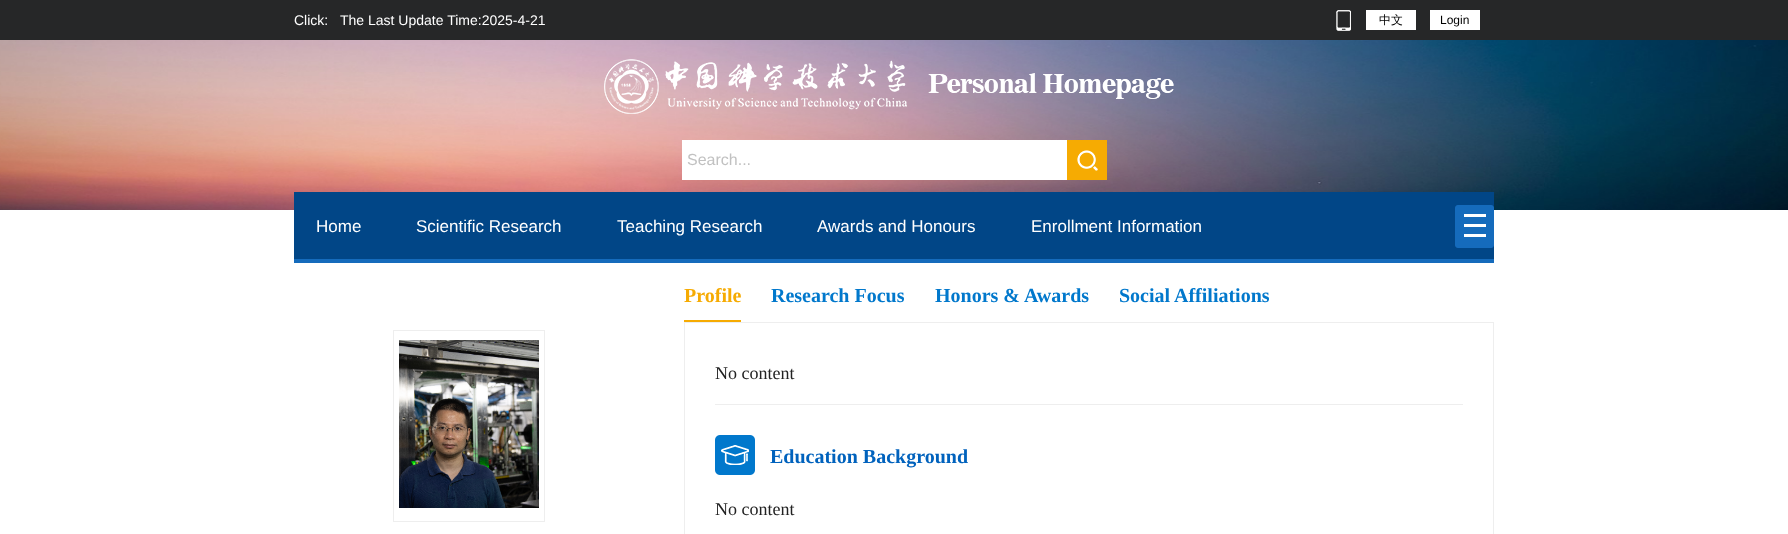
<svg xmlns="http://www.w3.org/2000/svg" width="1788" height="534">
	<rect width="100%" height="100%" fill="#FFFFFF" />
	<rect x="0" y="0" width="1788" height="40" fill="#262728" />
	<g font-family="Liberation Sans" font-size="14" fill="#FFFFFF">
		<text x="294" y="25">Click:</text>
		<text x="340" y="25">The Last Update Time:2025-4-21</text>
	</g>
	<image x="1336" y="10" width="15" height="21" href="assets/img1.png" />
	<rect x="1366" y="10" width="50" height="20" fill="#FFFFFF" />
	<text x="1379" y="24" font-family="WenQuanYi Zen Hei" font-size="12" font-weight="500" fill="#000000">中文</text>
	<rect x="1430" y="10" width="50" height="20" fill="#FFFFFF" />
	<text x="1440" y="24" font-family="Liberation Sans" font-size="12" fill="#000000">Login</text>
	<image x="0" y="40" width="1788" height="170" href="assets/img2.png" />
	<image x="604" y="59" width="570" height="55" href="assets/img3.png" />
	<rect x="682" y="140" width="385" height="40" fill="#FFFFFF" />
	<text x="687" y="165" font-family="Liberation Sans" font-size="16" fill="#C1C1C1">Search...</text>
	<image x="1067" y="140" width="40" height="40" href="assets/img4.png" />
	<rect x="294" y="192" width="1200" height="67" fill="#014687" />
	<rect x="294" y="259" width="1200" height="4" fill="#156BBC" />
	<g font-family="Liberation Sans" font-size="17" fill="#FFFFFF">
		<text x="316" y="232">Home</text>
		<text x="416" y="232">Scientific Research</text>
		<text x="617" y="232">Teaching Research</text>
		<text x="817" y="232">Awards and Honours</text>
		<text x="1031" y="232">Enrollment Information</text>
	</g>
	<image x="1455" y="205" width="39" height="43" href="assets/img5.png" />
	<rect x="393.5" y="330.5" width="151" height="191" fill="none" stroke="#EEEEEE" />
	<image x="399" y="340" width="140" height="168" href="assets/img6.png" />
	<rect x="684" y="320" width="57" height="2" fill="#F6AB02" />
	<text x="684" y="302" font-family="Liberation Serif" font-size="20" font-weight="700" fill="#F6AB02">Profile</text>
	<g font-family="Liberation Serif" font-size="20" font-weight="700" fill="#0178CC">
		<text x="771" y="302">Research Focus</text>
		<text x="935" y="302">Honors &amp; Awards</text>
		<text x="1119" y="302">Social Affiliations</text>
	</g>
	<rect x="684.5" y="322.5" width="809" height="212" fill="none" stroke="#EEEEEE" />
	<text x="715" y="379" font-family="Liberation Serif" font-size="18" fill="#222222">No content</text>
	<rect x="715" y="404" width="748" height="1" fill="#EEEEEE" />
	<image x="715" y="435" width="40" height="40" href="assets/img7.png" />
	<text x="770" y="463" font-family="Liberation Serif" font-size="20" font-weight="700" fill="#0062BD">Education Background</text>
	<text x="715" y="515" font-family="Liberation Serif" font-size="18" fill="#222222">No content</text>
</svg>
